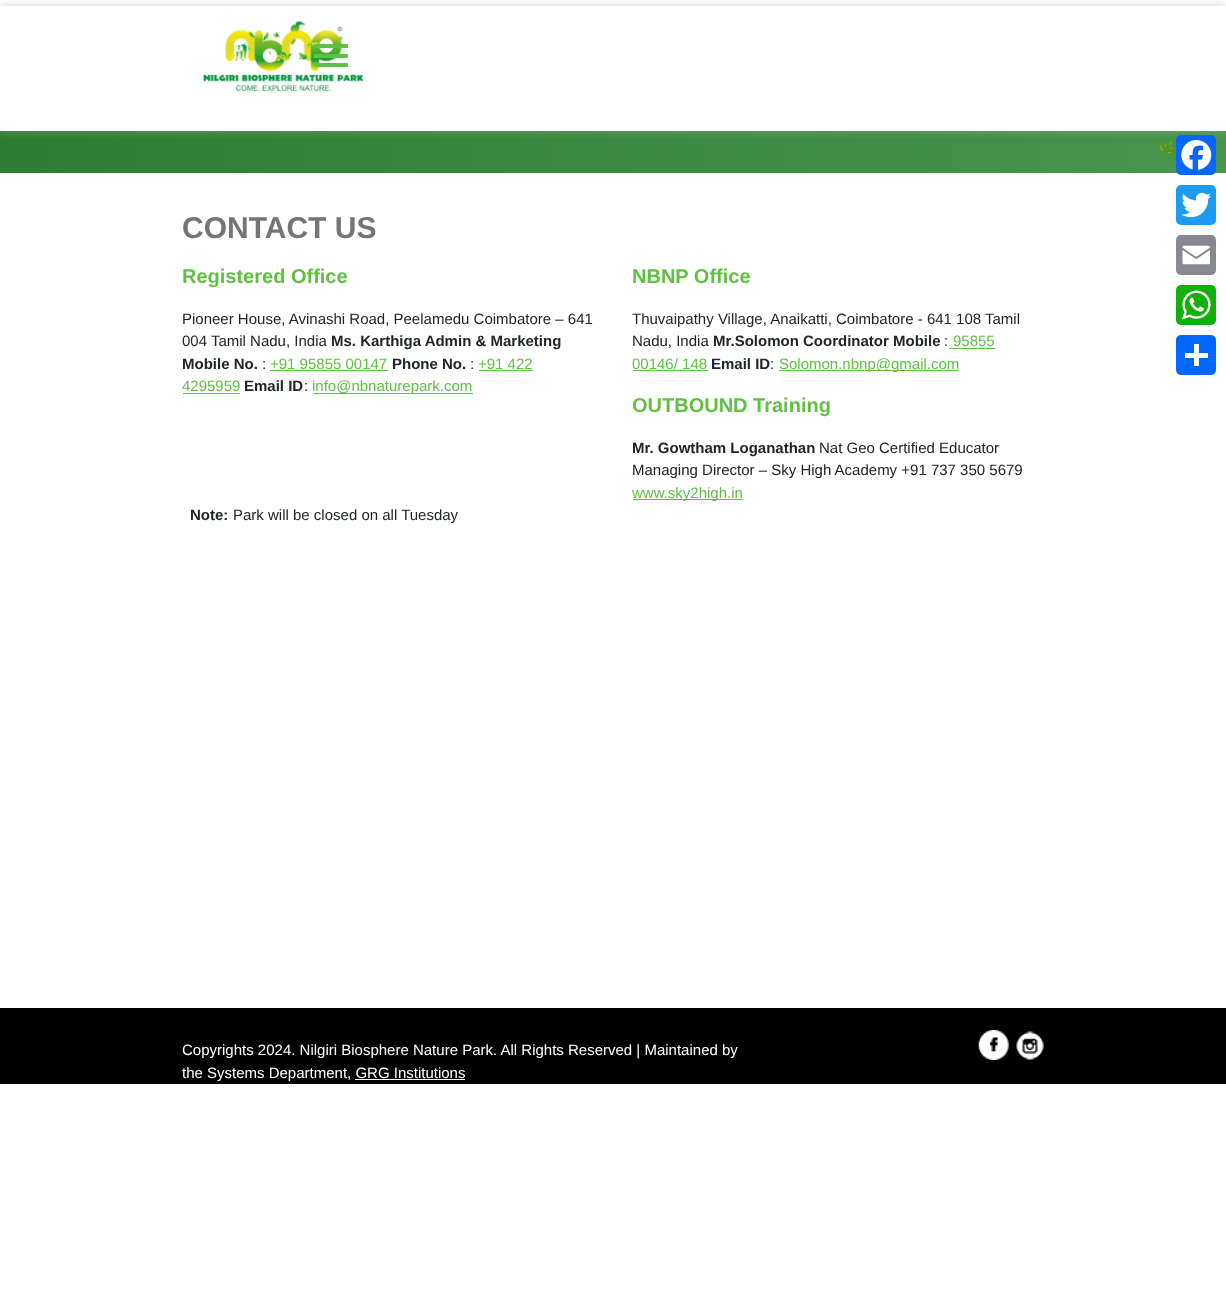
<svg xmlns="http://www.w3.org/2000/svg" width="1226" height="1309">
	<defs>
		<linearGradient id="g1" gradientUnits="userSpaceOnUse" x1="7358" y1="505" x2="0" y2="505"><stop offset="0" stop-color="#2E7D32" /><stop offset="0.5" stop-color="#81C784" /><stop offset="1" stop-color="#2E7D32" /></linearGradient>
	</defs>
	<rect width="100%" height="100%" fill="#FFFFFF" />
	<rect x="0" y="131" width="1226" height="42" fill="url(#g1)" />
	<rect x="0" y="6" width="1226" height="125" fill="#A9A9A9" fill-opacity="0.5" filter="blur(5px)" />
	<rect x="0" y="6" width="1226" height="125" fill="#FFFFFF" />
	<image x="203" y="20" width="161" height="72" href="assets/img1.png" />
	<rect x="314" y="44" width="34" height="4" rx="1" fill="#60C042" />
	<rect x="314" y="54" width="34" height="4" rx="1" fill="#60C042" />
	<rect x="314" y="63" width="34" height="4" rx="1" fill="#60C042" />
	<text x="1158" y="154" font-family="Noto Color Emoji" font-size="15" letter-spacing="1" fill="#FFFFFF">🌿</text>
	<rect x="1176" y="135" width="40" height="40" rx="5" fill="#0866FF" />
	<image x="1181" y="140" width="31" height="30" href="assets/img2.png" />
	<rect x="1176" y="185" width="40" height="40" rx="5" fill="#1D9BF0" />
	<image x="1181" y="192" width="31" height="26" href="assets/img3.png" />
	<rect x="1176" y="235" width="40" height="40" rx="5" fill="#888990" />
	<image x="1182" y="245" width="28" height="20" href="assets/img4.png" />
	<rect x="1176" y="285" width="40" height="40" rx="5" fill="#12AF0A" />
	<image x="1182" y="290" width="29" height="30" href="assets/img5.png" />
	<rect x="1176" y="335" width="40" height="40" rx="5" fill="#0166FF" />
	<rect x="1194" y="344" width="5" height="22" fill="#FFFFFF" />
	<rect x="1185" y="353" width="23" height="5" fill="#FFFFFF" />
	<text x="182" y="238" font-family="Liberation Sans" font-size="30" font-weight="700" fill="#757575">CONTACT US</text>
	<text x="182" y="283" font-family="Liberation Sans" font-size="20" font-weight="700" fill="#60C042">Registered Office</text>
	<g font-family="Liberation Sans" font-size="15" fill="#212529">
		<text x="182" y="324">Pioneer House, Avinashi Road, Peelamedu Coimbatore – 641</text>
		<text x="182" y="346">004 Tamil Nadu, India</text>
	</g>
	<g font-family="Liberation Sans" font-size="15" font-weight="700" fill="#212529">
		<text x="331" y="346">Ms. Karthiga Admin &amp; Marketing</text>
		<text x="182" y="369">Mobile No.</text>
	</g>
	<text x="262" y="369" font-family="Liberation Sans" font-size="15" fill="#212529">:</text>
	<text x="270" y="369" font-family="Liberation Sans" font-size="15" fill="#60C042">+91 95855 00147</text>
	<rect x="270" y="370" width="118" height="1" fill="#60C042" />
	<text x="392" y="369" font-family="Liberation Sans" font-size="15" font-weight="700" fill="#212529">Phone No.</text>
	<text x="470" y="369" font-family="Liberation Sans" font-size="15" fill="#212529">:</text>
	<text x="478" y="369" font-family="Liberation Sans" font-size="15" fill="#60C042">+91 422</text>
	<rect x="479" y="370" width="54" height="1" fill="#60C042" />
	<text x="182" y="391" font-family="Liberation Sans" font-size="15" fill="#60C042">4295959</text>
	<rect x="183" y="393" width="57" height="1" fill="#60C042" />
	<text x="244" y="391" font-family="Liberation Sans" font-size="15" font-weight="700" fill="#212529">Email ID</text>
	<text x="304" y="391" font-family="Liberation Sans" font-size="15" fill="#212529">:</text>
	<rect x="313" y="393" width="160" height="1" fill="#60C042" />
	<text x="312" y="391" font-family="Liberation Sans" font-size="15" fill="#60C042">info@nbnaturepark.com</text>
	<text x="632" y="283" font-family="Liberation Sans" font-size="20" font-weight="700" fill="#60C042">NBNP Office</text>
	<g font-family="Liberation Sans" font-size="15" fill="#212529">
		<text x="632" y="324">Thuvaipathy Village, Anaikatti, Coimbatore - 641 108 Tamil</text>
		<text x="632" y="346">Nadu, India</text>
	</g>
	<text x="713" y="346" font-family="Liberation Sans" font-size="15" font-weight="700" fill="#212529">Mr.Solomon Coordinator Mobile</text>
	<text x="944" y="346" font-family="Liberation Sans" font-size="15" fill="#212529">:</text>
	<text x="953" y="346" font-family="Liberation Sans" font-size="15" fill="#60C042">95855</text>
	<rect x="949" y="348" width="46" height="1" fill="#60C042" />
	<text x="632" y="369" font-family="Liberation Sans" font-size="15" fill="#60C042">00146/ 148</text>
	<rect x="633" y="370" width="75" height="1" fill="#60C042" />
	<text x="711" y="369" font-family="Liberation Sans" font-size="15" font-weight="700" fill="#212529">Email ID</text>
	<text x="770" y="369" font-family="Liberation Sans" font-size="15" fill="#212529">:</text>
	<rect x="779" y="370" width="180" height="1" fill="#60C042" />
	<text x="779" y="369" font-family="Liberation Sans" font-size="15" fill="#60C042">Solomon.nbnp@gmail.com</text>
	<text x="632" y="412" font-family="Liberation Sans" font-size="20" font-weight="700" fill="#60C042">OUTBOUND Training</text>
	<text x="632" y="453" font-family="Liberation Sans" font-size="15" font-weight="700" fill="#212529">Mr. Gowtham Loganathan</text>
	<g font-family="Liberation Sans" font-size="15" fill="#212529">
		<text x="819" y="453">Nat Geo Certified Educator</text>
		<text x="632" y="475">Managing Director – Sky High Academy +91 737 350 5679</text>
	</g>
	<rect x="633" y="499" width="110" height="1" fill="#60C042" />
	<text x="632" y="498" font-family="Liberation Sans" font-size="15" fill="#60C042">www.sky2high.in</text>
	<text x="190" y="520" font-family="Liberation Sans" font-size="15" font-weight="700" fill="#212529">Note:</text>
	<text x="233" y="520" font-family="Liberation Sans" font-size="15" fill="#212529">Park will be closed on all Tuesday</text>
	<rect x="0" y="1008" width="1226" height="76" fill="#000000" />
	<g font-family="Liberation Sans" font-size="15" fill="#FFFFFF">
		<text x="182" y="1055">Copyrights 2024. Nilgiri Biosphere Nature Park. All Rights Reserved | Maintained by</text>
		<text x="182" y="1078">the Systems Department, GRG Institutions</text>
	</g>
	<rect x="355" y="1079" width="110" height="1" fill="#FFFFFF" />
	<image x="978" y="1030" width="31" height="30" href="assets/img6.png" />
	<image x="1016" y="1031" width="28" height="29" href="assets/img7.png" />
</svg>
